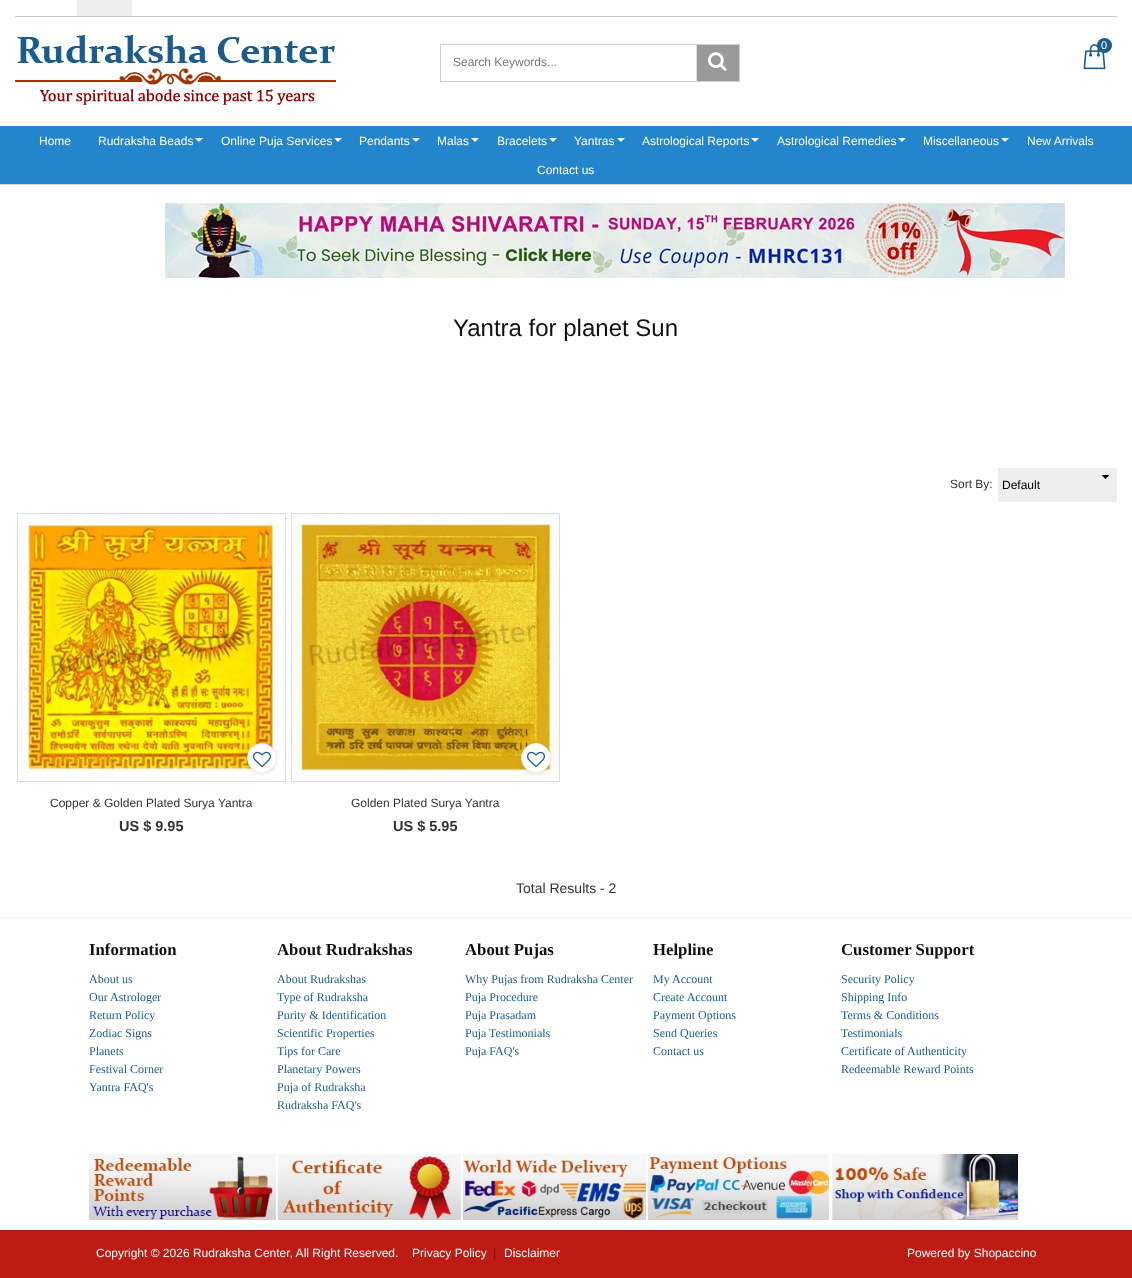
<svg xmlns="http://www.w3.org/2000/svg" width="1132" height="1278">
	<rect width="100%" height="100%" fill="#FFFFFF" />
	<rect x="15" y="16" width="1102" height="1" fill="#CDCDCD" />
	<rect x="77" y="-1" width="55" height="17" rx="1" fill="#EEEEEE" />
	<image x="15" y="35" width="321" height="70" href="assets/img1.png" />
	<image x="1083" y="44" width="23" height="26" href="assets/img2.png" />
	<circle cx="1104.5" cy="45.5" r="7.5" fill="#1C5C8C" />
	<text x="1101" y="49" font-family="Liberation Sans" font-size="11" fill="#FFFFFF">0</text>
	<rect x="440.5" y="44.5" width="299" height="37" fill="none" stroke="#CCCCCC" />
	<text x="453" y="66" font-family="Liberation Sans" font-size="12" fill="#777777">Search Keywords...</text>
	<rect x="697" y="45" width="42" height="36" fill="#999999" />
	<rect x="696" y="45" width="1" height="36" fill="#DDDDDD" />
	<image x="708" y="52" width="19" height="19" href="assets/img3.png" />
	<rect x="0" y="126" width="1132" height="58" fill="#2385CC" />
	<g font-family="Liberation Sans" font-size="12" fill="#FFFFFF">
		<text x="39" y="145">Home</text>
		<text x="98" y="145">Rudraksha Beads</text>
	</g>
	<path d="M195 138H203L199 142Z" fill="#FFFFFF" />
	<text x="221" y="145" font-family="Liberation Sans" font-size="12" fill="#FFFFFF">Online Puja Services</text>
	<path d="M334 138H342L338 142Z" fill="#FFFFFF" />
	<text x="359" y="145" font-family="Liberation Sans" font-size="12" fill="#FFFFFF">Pendants</text>
	<path d="M412 138H420L416 142Z" fill="#FFFFFF" />
	<text x="437" y="145" font-family="Liberation Sans" font-size="12" fill="#FFFFFF">Malas</text>
	<path d="M471 138H479L475 142Z" fill="#FFFFFF" />
	<text x="497" y="145" font-family="Liberation Sans" font-size="12" fill="#FFFFFF">Bracelets</text>
	<path d="M549 138H557L553 142Z" fill="#FFFFFF" />
	<text x="574" y="145" font-family="Liberation Sans" font-size="12" fill="#FFFFFF">Yantras</text>
	<path d="M617 138H625L621 142Z" fill="#FFFFFF" />
	<text x="642" y="145" font-family="Liberation Sans" font-size="12" fill="#FFFFFF">Astrological Reports</text>
	<path d="M751 138H759L755 142Z" fill="#FFFFFF" />
	<text x="777" y="145" font-family="Liberation Sans" font-size="12" fill="#FFFFFF">Astrological Remedies</text>
	<path d="M898 138H906L902 142Z" fill="#FFFFFF" />
	<text x="923" y="145" font-family="Liberation Sans" font-size="12" fill="#FFFFFF">Miscellaneous</text>
	<path d="M1001 138H1009L1005 142Z" fill="#FFFFFF" />
	<g font-family="Liberation Sans" font-size="12" fill="#FFFFFF">
		<text x="1027" y="145">New Arrivals</text>
		<text x="537" y="174">Contact us</text>
	</g>
	<rect x="0" y="184" width="1132" height="1" fill="#D9D9D9" />
	<image x="165" y="203" width="900" height="75" href="assets/img4.png" />
	<text x="453" y="336" font-family="Liberation Sans" font-size="24" fill="#111111">Yantra for planet Sun</text>
	<text x="950" y="488" font-family="Liberation Sans" font-size="12" fill="#333333">Sort By:</text>
	<rect x="998" y="468" width="119" height="34" rx="1" fill="#EEEEEE" />
	<image x="1102" y="475" width="7" height="4" href="assets/img5.png" />
	<text x="1002" y="489" font-family="Liberation Sans" font-size="12" fill="#000000">Default</text>
	<rect x="17.5" y="513.5" width="268" height="268" fill="none" stroke="#DDDDDD" />
	<image x="18" y="514" width="257" height="257" href="assets/img6.png" />
	<text x="48" y="762" font-family="Liberation Sans" font-size="11" fill="#E49609">QUICK VIEW</text>
	<rect x="247" y="744" width="30" height="30" rx="15" fill="#000000" fill-opacity="0.1" filter="blur(2px)" />
	<circle cx="262" cy="758" r="14.5" fill="#FFFFFF" stroke="#F0F0F0" />
	<image x="253" y="751" width="18" height="17" href="assets/img7.png" />
	<text x="50" y="807" font-family="Liberation Sans" font-size="12" fill="#333333">Copper &amp; Golden Plated Surya Yantra</text>
	<text x="119" y="831" font-family="Liberation Sans" font-size="14.5" font-weight="700" fill="#333333">US $ 9.95</text>
	<rect x="291.5" y="513.5" width="268" height="268" fill="none" stroke="#DDDDDD" />
	<image x="292" y="514" width="267" height="267" href="assets/img8.png" />
	<rect x="521" y="744" width="30" height="30" rx="15" fill="#000000" fill-opacity="0.1" filter="blur(2px)" />
	<circle cx="536" cy="758" r="14.5" fill="#FFFFFF" stroke="#F0F0F0" />
	<image x="527" y="751" width="18" height="17" href="assets/img7.png" />
	<text x="351" y="807" font-family="Liberation Sans" font-size="12" fill="#333333">Golden Plated Surya Yantra</text>
	<text x="393" y="831" font-family="Liberation Sans" font-size="14.5" font-weight="700" fill="#333333">US $ 5.95</text>
	<text x="516" y="893" font-family="Liberation Sans" font-size="14" fill="#333333">Total Results - 2</text>
	<rect x="0" y="917" width="1132" height="1" fill="#F2F2F2" />
	<text x="89" y="955" font-family="Liberation Serif" font-size="16.75" font-weight="700" fill="#111111">Information</text>
	<g font-family="Liberation Serif" font-size="12" fill="#1C5C8C">
		<text x="89" y="983">About us</text>
		<text x="89" y="1001">Our Astrologer</text>
		<text x="89" y="1019">Return Policy</text>
		<text x="89" y="1037">Zodiac Signs</text>
		<text x="89" y="1055">Planets</text>
		<text x="89" y="1073">Festival Corner</text>
		<text x="89" y="1091">Yantra FAQ's</text>
	</g>
	<text x="277" y="955" font-family="Liberation Serif" font-size="16.75" font-weight="700" fill="#111111">About Rudrakshas</text>
	<g font-family="Liberation Serif" font-size="12" fill="#1C5C8C">
		<text x="277" y="983">About Rudrakshas</text>
		<text x="277" y="1001">Type of Rudraksha</text>
		<text x="277" y="1019">Purity &amp; Identification</text>
		<text x="277" y="1037">Scientific Properties</text>
		<text x="277" y="1055">Tips for Care</text>
		<text x="277" y="1073">Planetary Powers</text>
		<text x="277" y="1091">Puja of Rudraksha</text>
		<text x="277" y="1109">Rudraksha FAQ's</text>
	</g>
	<text x="465" y="955" font-family="Liberation Serif" font-size="16.75" font-weight="700" fill="#111111">About Pujas</text>
	<g font-family="Liberation Serif" font-size="12" fill="#1C5C8C">
		<text x="465" y="983">Why Pujas from Rudraksha Center</text>
		<text x="465" y="1001">Puja Procedure</text>
		<text x="465" y="1019">Puja Prasadam</text>
		<text x="465" y="1037">Puja Testimonials</text>
		<text x="465" y="1055">Puja FAQ's</text>
	</g>
	<text x="653" y="955" font-family="Liberation Serif" font-size="16.75" font-weight="700" fill="#111111">Helpline</text>
	<g font-family="Liberation Serif" font-size="12" fill="#1C5C8C">
		<text x="653" y="983">My Account</text>
		<text x="653" y="1001">Create Account</text>
		<text x="653" y="1019">Payment Options</text>
		<text x="653" y="1037">Send Queries</text>
		<text x="653" y="1055">Contact us</text>
	</g>
	<text x="841" y="955" font-family="Liberation Serif" font-size="16.75" font-weight="700" fill="#111111">Customer Support</text>
	<g font-family="Liberation Serif" font-size="12" fill="#1C5C8C">
		<text x="841" y="983">Security Policy</text>
		<text x="841" y="1001">Shipping Info</text>
		<text x="841" y="1019">Terms &amp; Conditions</text>
		<text x="841" y="1037">Testimonials</text>
		<text x="841" y="1055">Certificate of Authenticity</text>
		<text x="841" y="1073">Redeemable Reward Points</text>
	</g>
	<image x="89" y="1154" width="187" height="66" href="assets/img9.png" />
	<image x="276" y="1154" width="185" height="66" href="assets/img10.png" />
	<image x="461" y="1154" width="185" height="66" href="assets/img11.png" />
	<image x="646" y="1154" width="183" height="66" href="assets/img12.png" />
	<image x="829" y="1154" width="189" height="66" href="assets/img13.png" />
	<rect x="0" y="1231" width="1132" height="47" fill="#BD1C14" />
	<rect x="0" y="1230" width="1132" height="1" fill="#A11811" />
	<g font-family="Liberation Sans" font-size="12" fill="#FFFFFF">
		<text x="96" y="1257">Copyright © 2026 Rudraksha Center, All Right Reserved.</text>
		<text x="412" y="1257">Privacy Policy</text>
	</g>
	<text x="493" y="1257" font-family="Liberation Sans" font-size="12" fill="#7B120D">|</text>
	<g font-family="Liberation Sans" font-size="12" fill="#FFFFFF">
		<text x="504" y="1257">Disclaimer</text>
		<text x="907" y="1257">Powered by Shopaccino</text>
	</g>
</svg>
